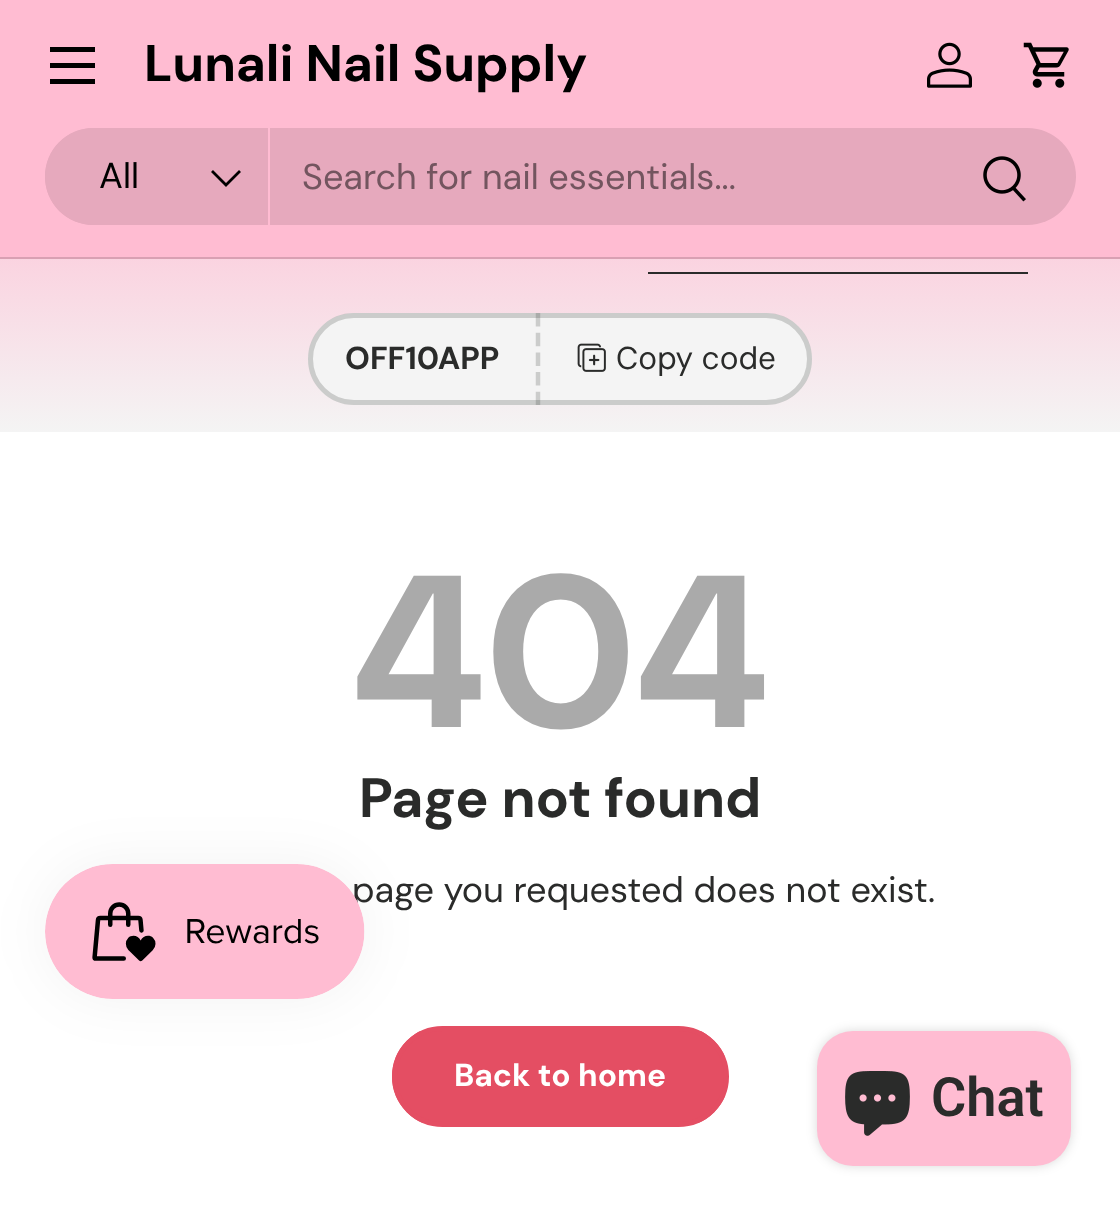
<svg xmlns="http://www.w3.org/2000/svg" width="1120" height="1211">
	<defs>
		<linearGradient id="g1" gradientUnits="userSpaceOnUse" x1="560" y1="135" x2="560" y2="432"><stop offset="0" stop-color="#FFBCD2" /><stop offset="1" stop-color="#F4F4F4" /></linearGradient>
		<clipPath id="clip1"><rect x="392" y="1026" width="337" height="101" rx="50.5" /></clipPath>
		<linearGradient id="g2" gradientUnits="userSpaceOnUse" x1="-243" y1="958" x2="706" y2="1195"><stop offset="0.6" stop-color="#EA7686" /><stop offset="0.6" stop-color="#E44E63" /><stop offset="1" stop-color="#E44E63" /></linearGradient>
	</defs>
	<rect width="100%" height="100%" fill="#FFFFFF" />
	<rect x="0" y="0" width="1120" height="257" fill="#FFBCD2" />
	<rect x="0" y="257" width="1120" height="2" fill="#D9A0B3" />
	<rect x="50" y="47" width="45" height="5" fill="#000000" />
	<rect x="50" y="79" width="45" height="5" fill="#000000" />
	<rect x="50" y="63" width="45" height="5" fill="#000000" />
	<text x="144" y="81" font-family="'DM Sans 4'" font-size="51.5" font-weight="700" fill="#000000">Lunali Nail Supply</text>
	<image x="927" y="42" width="45" height="46" href="assets/img1.png" />
	<image x="1023" y="42" width="46" height="46" href="assets/img2.png" />
	<rect x="45" y="128" width="1031" height="97" rx="48.5" fill="#E6A9BD" />
	<path d="M93.5 128H270V225H93.5C66.5 225 45 203.5 45 176.5C45 149.5 66.5 128 93.5 128Z" fill="#E6A9BD" />
	<rect x="268" y="128" width="2" height="97" fill="#FFBCD2" />
	<text x="99" y="188" font-family="DM Sans" font-size="36" fill="#000000">All</text>
	<path d="M240 171L226 185L212 171" fill="none" stroke="#000000" stroke-width="2.8" />
	<text x="302" y="189" font-family="DM Sans" font-size="36" fill="#73555F">Search for nail essentials...</text>
	<image x="983" y="156" width="43" height="46" href="assets/img3.png" />
	<rect x="0" y="259" width="1120" height="173" fill="url(#g1)" />
	<rect x="648" y="272" width="380" height="2" fill="#2A2B2A" />
	<rect x="308" y="313" width="504" height="92" rx="46" fill="#F4F4F4" />
	<rect x="310.5" y="315.5" width="499" height="87" rx="43.5" fill="none" stroke="#2A2B2A" stroke-opacity="0.2" stroke-width="5" />
	<text x="345" y="369" font-family="'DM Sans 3'" font-size="31.75" font-weight="700" fill="#2A2B2A">OFF10APP</text>
	<path d="M538 313V405" fill="none" stroke="#2A2B2A" stroke-opacity="0.2" stroke-width="4.5" stroke-dasharray="13.5 6.19" />
	<image x="577" y="343" width="29" height="29" href="assets/img4.png" />
	<text x="616" y="369" font-family="'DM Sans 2'" font-size="31.5" fill="#2A2B2A">Copy code</text>
	<g clip-path="url(#clip1)">
		<rect x="392" y="1031" width="333" height="92" fill="url(#g2)" />
	</g>
	<rect x="394.5" y="1028.5" width="332" height="96" rx="48" fill="none" stroke="#E44E63" stroke-width="5" />
	<rect x="45" y="864" width="320" height="135" rx="67.5" fill="#000000" fill-opacity="0.05" filter="blur(28px)" />
	<text x="352" y="902" font-family="DM Sans" font-size="36" fill="#2A2B2A">page you requested does not exist.</text>
	<image x="45" y="864" width="320" height="135" href="assets/img5.png" />
	<text x="352" y="727" font-family="DM Sans" font-size="216" font-weight="700" fill="#AAAAAA">404</text>
	<text x="359" y="817" font-family="'DM Sans 2'" font-size="55.5" font-weight="700" fill="#2A2B2A">Page not found</text>
	<text x="454" y="1086" font-family="'DM Sans 3'" font-size="31.75" font-weight="700" fill="#FFFFFF">Back to home</text>
	<rect x="817" y="1031" width="254" height="135" rx="36" fill="#000000" fill-opacity="0.15" filter="blur(5.5px)" />
	<rect x="817" y="1031" width="254" height="135" rx="36" fill="#FFBCD2" />
	<image x="845" y="1071" width="65" height="65" href="assets/img6.png" />
	<text x="931" y="1116" font-family="Roboto" font-size="54" font-weight="600" fill="#2A2B2A">Chat</text>
</svg>
